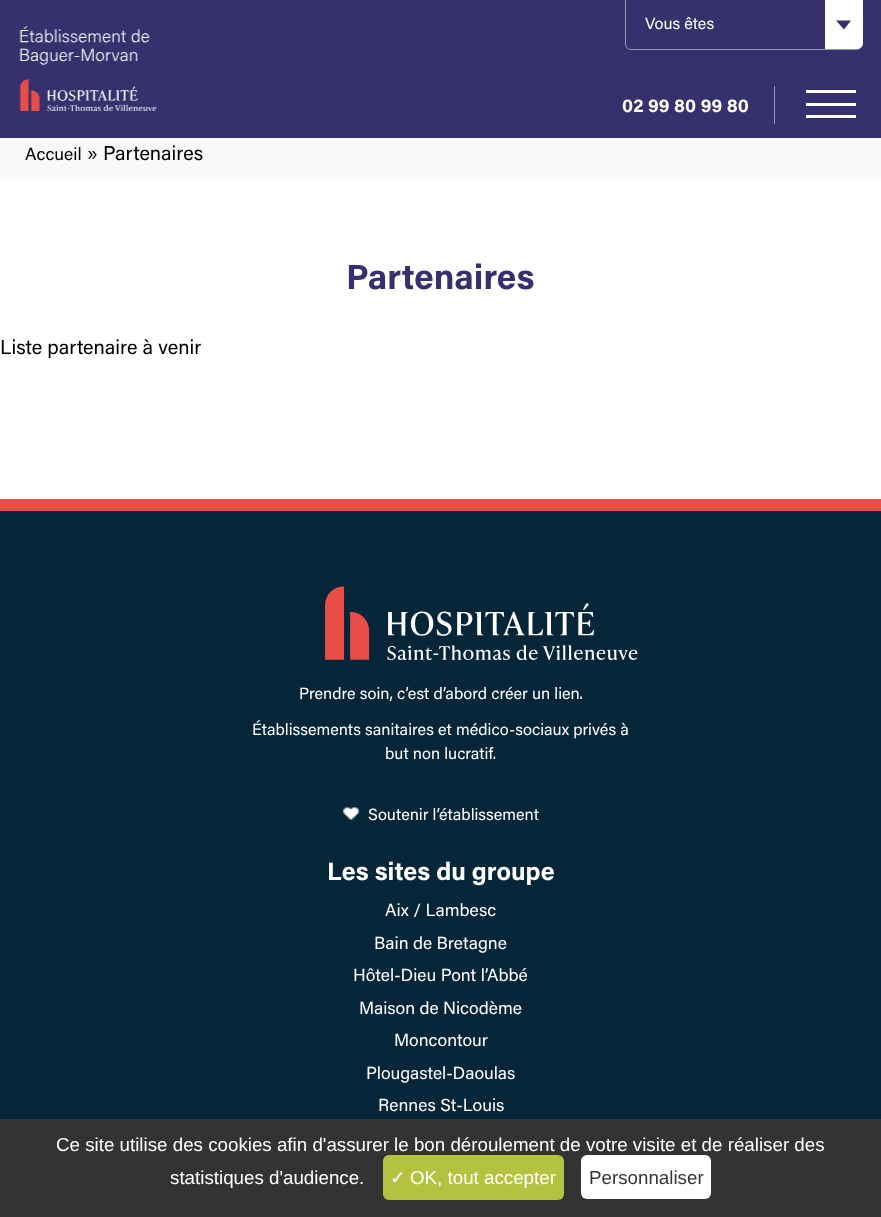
<svg xmlns="http://www.w3.org/2000/svg" width="881" height="1217">
	<rect width="100%" height="100%" fill="#FFFFFF" />
	<rect x="0" y="0" width="881" height="138" fill="#37306E" />
	<image x="19" y="26" width="138" height="85" href="assets/img1.png" />
	<path d="M625 0H862V44C862 47 860 50 856 50H631C628 50 625 47 625 44ZM626 0H862V44C862 47 860 49 856 49H631C628 49 626 47 626 44Z" fill="#9B98B7" fill-rule="evenodd" />
	<text x="645" y="29" font-family="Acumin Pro" font-size="16.25" fill="#FFFFFF">Vous êtes</text>
	<path d="M825 0H863V43C863 46.5 860.5 49 857 49H825Z" fill="#FFFFFF" />
	<path d="M836 20.5H851L844 29.5Z" fill="#37306E" />
	<rect x="774" y="86" width="1" height="38" fill="#9894B4" />
	<text x="622" y="112" font-family="Acumin Pro" font-size="18.75" font-weight="700" fill="#FFFFFF">02 99 80 99 80</text>
	<rect x="806" y="103" width="50" height="3" fill="#FFFFFF" />
	<rect x="806" y="90" width="50" height="3" fill="#FFFFFF" />
	<rect x="806" y="115" width="50" height="3" fill="#FFFFFF" />
	<rect x="0" y="138" width="881" height="41" fill="#F9F9F9" />
	<text x="25" y="160" font-family="Acumin Pro" font-size="17.5" fill="#000000">Accueil</text>
	<text x="87" y="160" font-family="Acumin Pro" font-size="20" fill="#000000">» Partenaires</text>
	<text x="346" y="289" font-family="Acumin Pro" font-size="35" font-weight="700" fill="#37306E">Partenaires</text>
	<text x="0" y="354" font-family="Acumin Pro" font-size="20" fill="#000000">Liste partenaire à venir</text>
	<rect x="0" y="511" width="881" height="608" fill="#042638" />
	<rect x="0" y="499" width="881" height="12" fill="#EA4D49" />
	<image x="325" y="586" width="313" height="74" href="assets/img2.png" />
	<g font-family="Acumin Pro" font-size="16.25" fill="#FFFFFF">
		<text x="299" y="699">Prendre soin, c’est d’abord créer un lien.</text>
		<text x="252" y="735">Établissements sanitaires et médico-sociaux privés à</text>
		<text x="385" y="759">but non lucratif.</text>
	</g>
	<image x="343" y="807" width="17" height="13" href="assets/img3.png" />
	<text x="368" y="820" font-family="Acumin Pro" font-size="16.25" fill="#FFFFFF">Soutenir l’établissement</text>
	<text x="327" y="880" font-family="Acumin Pro" font-size="25" font-weight="700" fill="#FFFFFF">Les sites du groupe</text>
	<g font-family="Acumin Pro" font-size="17.5" fill="#FFFFFF">
		<text x="385" y="916">Aix / Lambesc</text>
		<text x="374" y="949">Bain de Bretagne</text>
		<text x="353" y="981">Hôtel-Dieu Pont l’Abbé</text>
		<text x="359" y="1014">Maison de Nicodème</text>
		<text x="394" y="1046">Moncontour</text>
		<text x="366" y="1079">Plougastel-Daoulas</text>
		<text x="378" y="1111">Rennes St-Louis</text>
	</g>
	<rect x="0" y="1119" width="881" height="98" fill="#333333" />
	<g font-family="Liberation Sans" font-size="18.75" fill="#FFFFFF">
		<text x="56" y="1151">Ce site utilise des cookies afin d'assurer le bon déroulement de votre visite et de réaliser des</text>
		<text x="170" y="1184">statistiques d'audience.</text>
	</g>
	<rect x="383" y="1155" width="181" height="45" rx="6" fill="#B2C341" />
	<text x="390" y="1184" font-family="DejaVu Sans" font-size="18.75" fill="#FFFFFF">✓</text>
	<text x="410" y="1184" font-family="Liberation Sans" font-size="18.75" fill="#FFFFFF">OK, tout accepter</text>
	<rect x="581" y="1155" width="130" height="44" rx="6" fill="#FFFFFF" />
	<text x="589" y="1184" font-family="Liberation Sans" font-size="18.75" fill="#333333">Personnaliser</text>
</svg>
